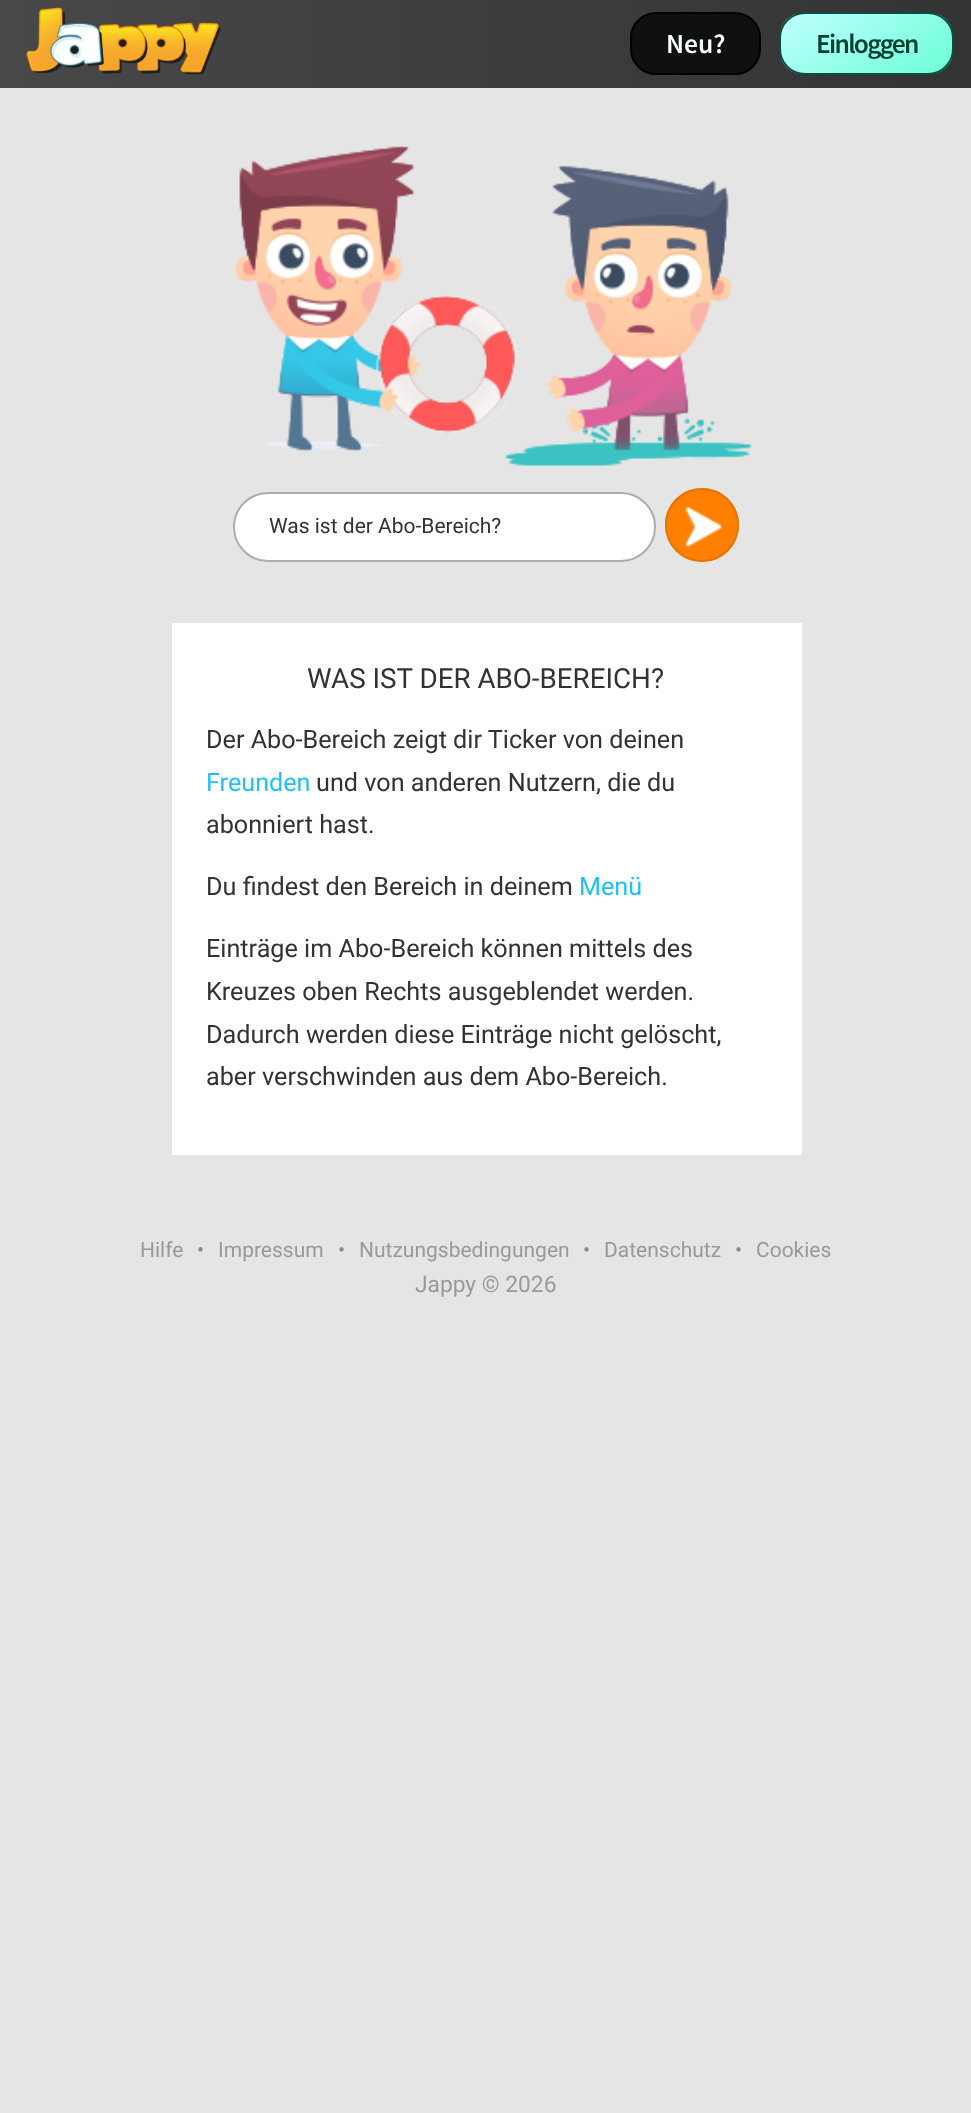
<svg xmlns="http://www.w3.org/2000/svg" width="971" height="2113">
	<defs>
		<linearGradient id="g1" gradientUnits="userSpaceOnUse" x1="0" y1="44" x2="971" y2="44"><stop offset="0" stop-color="#484848" /><stop offset="1" stop-color="#333333" /></linearGradient>
		<clipPath id="clip1"><rect x="779" y="12" width="175" height="63" rx="26" /></clipPath>
		<linearGradient id="g2" gradientUnits="userSpaceOnUse" x1="824" y1="-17" x2="908" y2="104"><stop offset="0" stop-color="#C0FFFF" /><stop offset="1" stop-color="#6BFFD6" /></linearGradient>
	</defs>
	<rect width="100%" height="100%" fill="#E5E5E5" />
	<rect x="0" y="0" width="971" height="88" fill="url(#g1)" />
	<image x="26" y="7" width="195" height="68" href="assets/img1.png" />
	<rect x="631" y="13" width="129" height="61" rx="25" fill="#101010" stroke="#000000" stroke-width="2" />
	<text x="666" y="53" font-family="Source Sans Pro" font-size="27.5" font-weight="600" fill="#F6FEFF">Neu?</text>
	<g clip-path="url(#clip1)">
		<rect x="781" y="14" width="171" height="60" fill="url(#g2)" />
	</g>
	<rect x="780" y="13" width="173" height="61" rx="25" fill="none" stroke="#0C4C41" stroke-width="2" />
	<text x="816" y="53" font-family="Source Sans Pro" font-size="27.5" font-weight="600" letter-spacing="-1.75" fill="#064031">Einloggen</text>
	<image x="235" y="146" width="517" height="320" href="assets/img2.png" />
	<rect x="234" y="493" width="421" height="68" rx="34" fill="#FFFFFF" stroke="#ADADAD" stroke-width="2" />
	<text x="269" y="533" font-family="Roboto" font-size="21" fill="#333333">Was ist der Abo-Bereich?</text>
	<circle cx="702" cy="525" r="37" fill="#FF7F00" />
	<image x="685" y="507" width="37" height="40" href="assets/img3.png" />
	<circle cx="702" cy="525" r="36" fill="none" stroke="#E87400" stroke-width="2" />
	<rect x="172" y="623" width="630" height="532" fill="#FFFFFF" />
	<text x="307" y="688" font-family="Roboto" font-size="27.75" fill="#333333">WAS IST DER ABO-BEREICH?</text>
	<text x="206" y="748" font-family="Roboto" font-size="25.2" fill="#333333">Der Abo-Bereich zeigt dir Ticker von deinen</text>
	<text x="206" y="791" font-family="Roboto" font-size="25.2" fill="#1EC0FF">Freunden</text>
	<g font-family="Roboto" font-size="25.2" fill="#333333">
		<text x="316" y="791">und von anderen Nutzern, die du</text>
		<text x="206" y="833">abonniert hast.</text>
		<text x="206" y="895">Du findest den Bereich in deinem</text>
	</g>
	<text x="579" y="895" font-family="Roboto" font-size="25.2" fill="#1EC0FF">Menü</text>
	<g font-family="Roboto" font-size="25.2" fill="#333333">
		<text x="206" y="957">Einträge im Abo-Bereich können mittels des</text>
		<text x="206" y="1000">Kreuzes oben Rechts ausgeblendet werden.</text>
		<text x="206" y="1043">Dadurch werden diese Einträge nicht gelöscht,</text>
		<text x="206" y="1085">aber verschwinden aus dem Abo-Bereich.</text>
	</g>
	<text x="140" y="1257" font-family="Roboto" font-size="21" fill="#999999">Hilfe</text>
	<text x="197" y="1257" font-family="Roboto" font-size="21" fill="#878787">•</text>
	<text x="218" y="1257" font-family="Roboto" font-size="21" fill="#999999">Impressum</text>
	<text x="338" y="1257" font-family="Roboto" font-size="21" fill="#878787">•</text>
	<text x="359" y="1257" font-family="Roboto" font-size="21" fill="#999999">Nutzungsbedingungen</text>
	<text x="583" y="1257" font-family="Roboto" font-size="21" fill="#878787">•</text>
	<text x="604" y="1257" font-family="Roboto" font-size="21" fill="#999999">Datenschutz</text>
	<text x="735" y="1257" font-family="Roboto" font-size="21" fill="#878787">•</text>
	<text x="756" y="1257" font-family="Roboto" font-size="21" fill="#999999">Cookies</text>
	<text x="415" y="1292" font-family="Roboto" font-size="22.75" fill="#999999">Jappy © 2026</text>
</svg>
